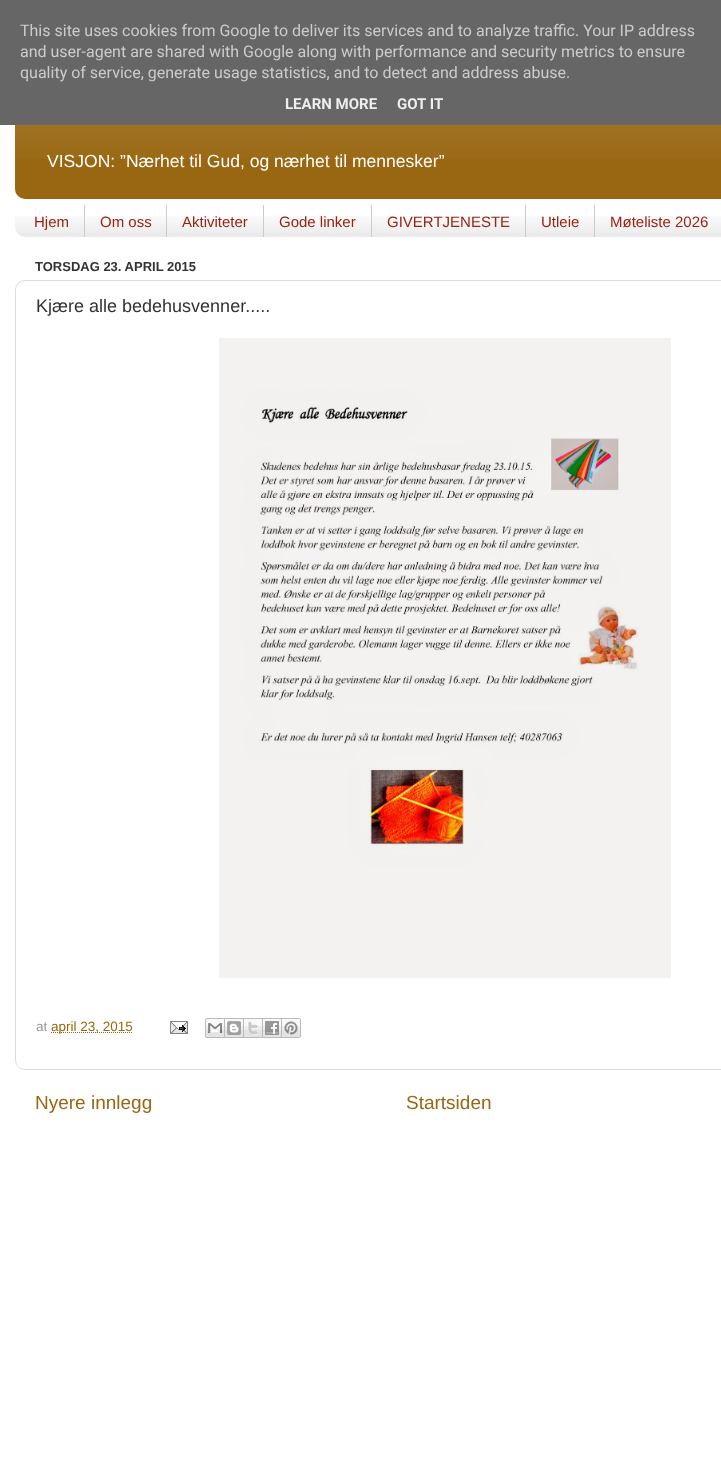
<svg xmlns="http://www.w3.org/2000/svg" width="721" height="1472">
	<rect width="100%" height="100%" fill="#FFFFFF" />
	<image x="0" y="125" width="721" height="1347" href="assets/img1.png" />
	<rect x="15" y="75" width="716" height="124" rx="10" fill="#996711" />
	<rect x="0" y="0" width="721" height="125" fill="#666666" />
	<g font-family="Roboto" font-size="16" fill="#CCCCCC">
		<text x="20" y="36">This site uses cookies from Google to deliver its services and to analyze traffic. Your IP address</text>
		<text x="20" y="57">and user-agent are shared with Google along with performance and security metrics to ensure</text>
		<text x="20" y="78">quality of service, generate usage statistics, and to detect and address abuse.</text>
	</g>
	<g font-family="Roboto" font-size="15" font-weight="700" fill="#EEEEEE">
		<text x="285" y="109">LEARN MORE</text>
		<text x="397" y="109">GOT IT</text>
	</g>
	<image x="15" y="125" width="706" height="34" href="assets/img2.png" />
	<text x="47" y="167" font-family="Liberation Sans" font-size="17.55" fill="#FFFFFF">VISJON: ”Nærhet til Gud, og nærhet til mennesker”</text>
	<image x="15" y="216" width="706" height="21" href="assets/img3.png" />
	<rect x="84" y="205" width="1" height="32" fill="#CCCCCC" />
	<text x="34" y="227" font-family="Liberation Sans" font-size="15" fill="#992211">Hjem</text>
	<rect x="166" y="205" width="1" height="32" fill="#CCCCCC" />
	<text x="100" y="227" font-family="Liberation Sans" font-size="15" fill="#992211">Om oss</text>
	<rect x="263" y="205" width="1" height="32" fill="#CCCCCC" />
	<text x="182" y="227" font-family="Liberation Sans" font-size="15" fill="#992211">Aktiviteter</text>
	<rect x="371" y="205" width="1" height="32" fill="#CCCCCC" />
	<text x="279" y="227" font-family="Liberation Sans" font-size="15" fill="#992211">Gode linker</text>
	<rect x="525" y="205" width="1" height="32" fill="#CCCCCC" />
	<text x="387" y="227" font-family="Liberation Sans" font-size="15" fill="#992211">GIVERTJENESTE</text>
	<rect x="594" y="205" width="1" height="32" fill="#CCCCCC" />
	<g font-family="Liberation Sans" font-size="15" fill="#992211">
		<text x="541" y="227">Utleie</text>
		<text x="610" y="227">Møteliste 2026</text>
	</g>
	<text x="35" y="271" font-family="Liberation Sans" font-size="13" font-weight="700" fill="#333333">TORSDAG 23. APRIL 2015</text>
	<rect x="15.5" y="280.5" width="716" height="789" rx="9.5" fill="none" stroke="#DDDDDD" />
	<text x="36" y="312" font-family="Liberation Sans" font-size="18" fill="#333333">Kjære alle bedehusvenner.....</text>
	<image x="219" y="338" width="452" height="640" href="assets/img4.png" />
	<text x="36" y="1031" font-family="Liberation Sans" font-size="13.5" fill="#999999">at</text>
	<path d="M51 1032.5H133" fill="none" stroke="#996711" stroke-dasharray="1 1" />
	<text x="51" y="1031" font-family="Liberation Sans" font-size="13.5" fill="#996711">april 23, 2015</text>
	<image x="170" y="1021" width="18" height="13" href="assets/img5.png" />
	<image x="205" y="1018" width="20" height="20" href="assets/img6.png" />
	<image x="225" y="1018" width="19" height="20" href="assets/img7.png" />
	<image x="244" y="1018" width="19" height="20" href="assets/img8.png" />
	<image x="263" y="1018" width="19" height="20" href="assets/img9.png" />
	<image x="282" y="1018" width="19" height="20" href="assets/img10.png" />
	<g font-family="Liberation Sans" font-size="19" fill="#996711">
		<text x="35" y="1109">Nyere innlegg</text>
		<text x="406" y="1109">Startsiden</text>
	</g>
</svg>
